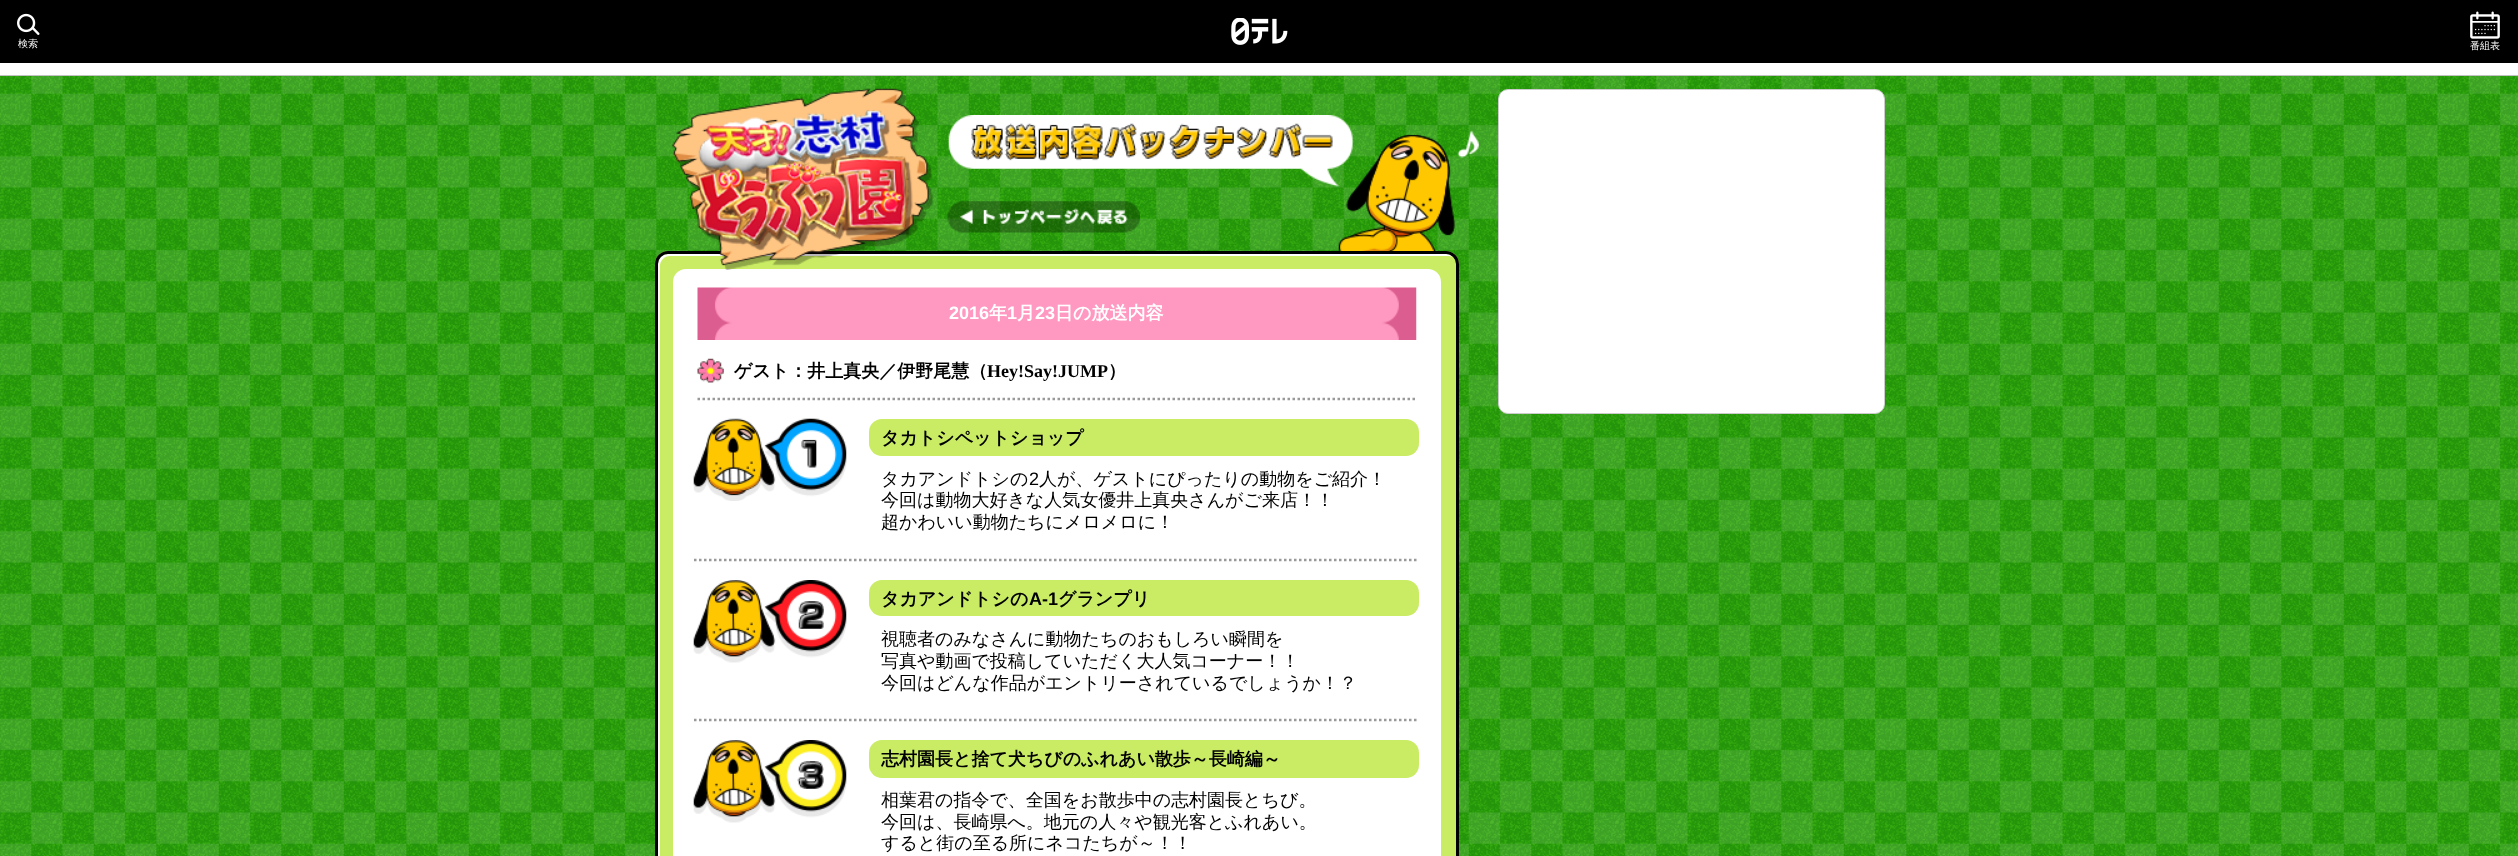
<svg xmlns="http://www.w3.org/2000/svg" width="2518" height="856">
	<rect width="100%" height="100%" fill="#FFFFFF" />
	<image x="0" y="76" width="2518" height="780" href="assets/img1.png" />
	<rect x="0" y="0" width="2518" height="63" fill="#000000" />
	<image x="17" y="13" width="23" height="22" href="assets/img2.png" />
	<text x="18" y="47" font-family="WenQuanYi Zen Hei" font-size="10" font-weight="500" fill="#FFFFFF">検索</text>
	<image x="1231" y="18" width="57" height="27" href="assets/img3.png" />
	<image x="2470" y="11" width="30" height="28" href="assets/img4.png" />
	<text x="2470" y="49" font-family="WenQuanYi Zen Hei" font-size="10" font-weight="500" fill="#FFFFFF">番組表</text>
	<rect x="0" y="75" width="2518" height="1" fill="#C1C1C1" />
	<rect x="1498.5" y="89.5" width="386" height="324" rx="9.5" fill="#FFFFFF" stroke="#CCCCCC" />
	<image x="948" y="115" width="531" height="136" href="assets/img5.png" />
	<rect x="655" y="251" width="804" height="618" rx="13" fill="#C9EC64" />
	<path d="M670 256H1449L1453 257C1451 255 1449 254 1446 254H668C662 254 658 258 658 264V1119C658 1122 659 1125 661 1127C660 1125 660 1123 660 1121V266C660 261 664 256 670 256Z" fill="#FFFFFF" />
	<rect x="656.5" y="252.5" width="801" height="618" rx="11.5" fill="none" stroke="#000000" stroke-width="3" />
	<rect x="673" y="269" width="768" height="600" rx="13" fill="#FFFFFF" />
	<image x="672" y="88" width="261" height="182" href="assets/img6.png" />
	<image x="947" y="201" width="193" height="32" href="assets/img7.png" />
	<image x="697" y="287" width="720" height="53" href="assets/img8.png" />
	<text x="949" y="319" font-family="Liberation Sans" font-size="18" font-weight="700" fill="#FFFFFF">2016</text>
	<text x="989" y="319" font-family="WenQuanYi Zen Hei" font-size="18" font-weight="700" fill="#FFFFFF">年</text>
	<text x="1007" y="319" font-family="Liberation Sans" font-size="18" font-weight="700" fill="#FFFFFF">1</text>
	<text x="1017" y="319" font-family="WenQuanYi Zen Hei" font-size="18" font-weight="700" fill="#FFFFFF">月</text>
	<text x="1035" y="319" font-family="Liberation Sans" font-size="18" font-weight="700" fill="#FFFFFF">23</text>
	<text x="1055" y="319" font-family="WenQuanYi Zen Hei" font-size="18" font-weight="700" fill="#FFFFFF">日の放送内容</text>
	<path d="M697.5 399H1416" fill="none" stroke="#999999" stroke-width="2.5" stroke-dasharray="2.5 2.5" />
	<image x="697" y="358" width="27" height="25" href="assets/img9.png" />
	<text x="734" y="377" font-family="WenQuanYi Zen Hei" font-size="18" font-weight="700" fill="#000000">ゲスト：井上真央／伊野尾慧（</text>
	<text x="987" y="377" font-family="Liberation Serif" font-size="18" font-weight="700" fill="#000000">Hey!Say!JUMP</text>
	<text x="1108" y="377" font-family="WenQuanYi Zen Hei" font-size="18" font-weight="700" fill="#000000">）</text>
	<image x="693" y="418" width="154" height="83" href="assets/img10.png" />
	<path d="M694 560H1419" fill="none" stroke="#999999" stroke-width="2.5" stroke-dasharray="2.5 2.5" />
	<rect x="869" y="419" width="550" height="37" rx="13" fill="#C9EC64" />
	<text x="881" y="444" font-family="WenQuanYi Zen Hei" font-size="18" font-weight="700" fill="#000000">タカトシペットショップ</text>
	<text x="881" y="485" font-family="WenQuanYi Zen Hei" font-size="18" font-weight="500" fill="#000000">タカアンドトシの</text>
	<text x="1029" y="485" font-family="Liberation Sans" font-size="18" fill="#000000">2</text>
	<g font-family="WenQuanYi Zen Hei" font-size="18" font-weight="500" fill="#000000">
		<text x="1039" y="485">人が、ゲストにぴったりの動物をご紹介！</text>
		<text x="881" y="506">今回は動物大好きな人気女優井上真央さんがご来店！！</text>
		<text x="881" y="528">超かわいい動物たちにメロメロに！</text>
	</g>
	<image x="693" y="580" width="154" height="83" href="assets/img11.png" />
	<path d="M694 720H1419" fill="none" stroke="#999999" stroke-width="2.5" stroke-dasharray="2.5 2.5" />
	<rect x="869" y="580" width="550" height="36" rx="13" fill="#C9EC64" />
	<text x="881" y="605" font-family="WenQuanYi Zen Hei" font-size="18" font-weight="700" fill="#000000">タカアンドトシの</text>
	<text x="1029" y="605" font-family="Liberation Sans" font-size="18" font-weight="700" fill="#000000">A-1</text>
	<text x="1058" y="605" font-family="WenQuanYi Zen Hei" font-size="18" font-weight="700" fill="#000000">グランプリ</text>
	<g font-family="WenQuanYi Zen Hei" font-size="18" font-weight="500" fill="#000000">
		<text x="881" y="645">視聴者のみなさんに動物たちのおもしろい瞬間を</text>
		<text x="881" y="667">写真や動画で投稿していただく大人気コーナー！！</text>
		<text x="881" y="689">今回はどんな作品がエントリーされているでしょうか！？</text>
	</g>
	<image x="693" y="740" width="154" height="83" href="assets/img12.png" />
	<rect x="869" y="740" width="550" height="38" rx="13" fill="#C9EC64" />
	<text x="881" y="765" font-family="WenQuanYi Zen Hei" font-size="18" font-weight="700" fill="#000000">志村園長と捨て犬ちびのふれあい散歩～長崎編～</text>
	<g font-family="WenQuanYi Zen Hei" font-size="18" font-weight="500" fill="#000000">
		<text x="881" y="806">相葉君の指令で、全国をお散歩中の志村園長とちび。</text>
		<text x="881" y="828">今回は、長崎県へ。地元の人々や観光客とふれあい。</text>
		<text x="881" y="849">すると街の至る所にネコたちが～！！</text>
	</g>
</svg>
